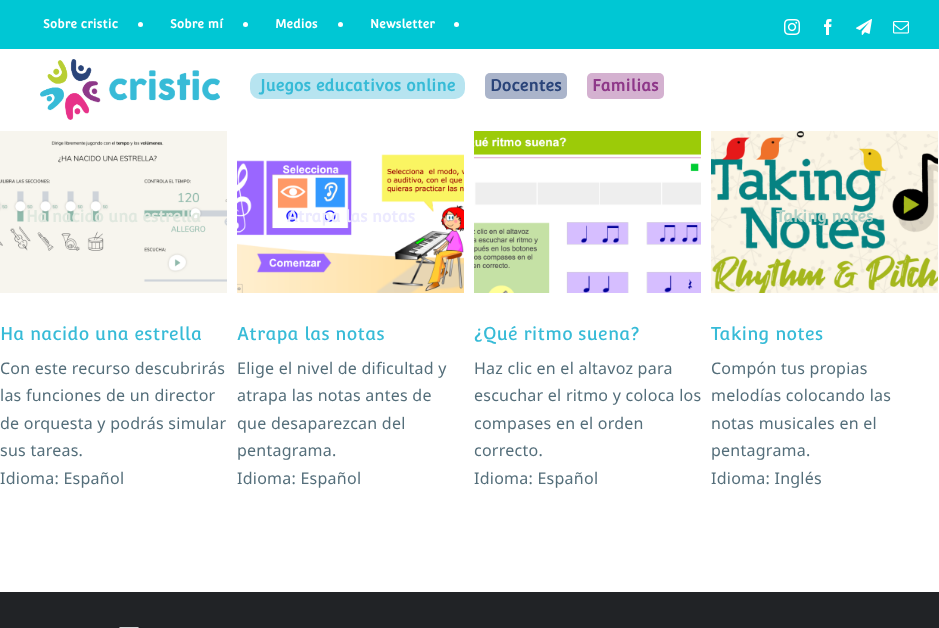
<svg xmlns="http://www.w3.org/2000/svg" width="939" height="628">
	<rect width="100%" height="100%" fill="#FFFFFF" />
	<rect x="0" y="0" width="939" height="49" fill="#00C7D4" />
	<text x="43" y="28" font-family="Convergence" font-size="12" font-weight="700" letter-spacing="0.25" fill="#FFFFFF">Sobre cristic</text>
	<circle cx="140.5" cy="24.5" r="2.5" fill="#FFFFFF" />
	<text x="170" y="28" font-family="Convergence" font-size="12" font-weight="700" letter-spacing="0.25" fill="#FFFFFF">Sobre mí</text>
	<circle cx="245.5" cy="24.5" r="2.5" fill="#FFFFFF" />
	<text x="275" y="28" font-family="Convergence" font-size="12" font-weight="700" letter-spacing="0.25" fill="#FFFFFF">Medios</text>
	<circle cx="340.5" cy="24.5" r="2.5" fill="#FFFFFF" />
	<text x="370" y="28" font-family="Convergence" font-size="12" font-weight="700" letter-spacing="0.25" fill="#FFFFFF">Newsletter</text>
	<circle cx="456.5" cy="24.5" r="2.5" fill="#FFFFFF" />
	<image x="784" y="19" width="16" height="16" href="assets/img1.png" />
	<image x="824" y="19" width="8" height="16" href="assets/img2.png" />
	<image x="856" y="19" width="16" height="16" href="assets/img3.png" />
	<image x="893" y="21" width="16" height="13" href="assets/img4.png" />
	<image x="40" y="59" width="180" height="61" href="assets/img5.png" />
	<rect x="250" y="73" width="215" height="26" rx="10" fill="#B7E4F0" />
	<text x="260" y="91" font-family="Convergence" font-size="16" font-weight="700" letter-spacing="0.25" fill="#37BBD7">Juegos educativos online</text>
	<rect x="485" y="73" width="82" height="26" rx="5" fill="#AAB4CA" />
	<text x="490" y="91" font-family="Convergence" font-size="16" font-weight="700" letter-spacing="0.25" fill="#2A4479">Docentes</text>
	<rect x="587" y="73" width="77" height="26" rx="5" fill="#D4B1D0" />
	<text x="592" y="91" font-family="Convergence" font-size="16" font-weight="700" letter-spacing="0.25" fill="#8E3889">Familias</text>
	<image x="0" y="131" width="227" height="162" href="assets/img6.png" />
	<text x="26" y="222" font-family="Convergence" font-size="16" font-weight="700" fill="#E0E8DF">Ha nacido una estrella</text>
	<text x="0" y="340" font-family="Convergence" font-size="18" letter-spacing="0.25" fill="#37BBD7">Ha nacido una estrella</text>
	<g font-family="Noto Sans" font-size="16" letter-spacing="0.25" fill="#546E7A">
		<text x="0" y="374">Con este recurso descubrirás</text>
		<text x="0" y="401">las funciones de un director</text>
		<text x="0" y="429">de orquesta y podrás simular</text>
		<text x="0" y="456">sus tareas.</text>
		<text x="0" y="484">Idioma: Español</text>
	</g>
	<image x="237" y="154" width="227" height="139" href="assets/img7.png" />
	<text x="287" y="222" font-family="Convergence" font-size="16" font-weight="700" fill="#ECEAFF">Atrapa las notas</text>
	<text x="237" y="340" font-family="Convergence" font-size="18" letter-spacing="0.25" fill="#37BBD7">Atrapa las notas</text>
	<g font-family="Noto Sans" font-size="16" letter-spacing="0.25" fill="#546E7A">
		<text x="237" y="374">Elige el nivel de dificultad y</text>
		<text x="237" y="401">atrapa las notas antes de</text>
		<text x="237" y="429">que desaparezcan del</text>
		<text x="237" y="456">pentagrama.</text>
		<text x="237" y="484">Idioma: Español</text>
	</g>
	<image x="474" y="131" width="227" height="162" href="assets/img8.png" />
	<text x="474" y="340" font-family="Convergence" font-size="18" letter-spacing="0.25" fill="#37BBD7">¿Qué ritmo suena?</text>
	<g font-family="Noto Sans" font-size="16" letter-spacing="0.25" fill="#546E7A">
		<text x="474" y="374">Haz clic en el altavoz para</text>
		<text x="474" y="401">escuchar el ritmo y coloca los</text>
		<text x="474" y="429">compases en el orden</text>
		<text x="474" y="456">correcto.</text>
		<text x="474" y="484">Idioma: Español</text>
	</g>
	<image x="711" y="131" width="227" height="162" href="assets/img9.png" />
	<text x="776" y="222" font-family="Convergence" font-size="16" font-weight="700" fill="#AFD1C6">Taking notes</text>
	<text x="711" y="340" font-family="Convergence" font-size="18" letter-spacing="0.25" fill="#37BBD7">Taking notes</text>
	<g font-family="Noto Sans" font-size="16" letter-spacing="0.25" fill="#546E7A">
		<text x="711" y="374">Compón tus propias</text>
		<text x="711" y="401">melodías colocando las</text>
		<text x="711" y="429">notas musicales en el</text>
		<text x="711" y="456">pentagrama.</text>
		<text x="711" y="484">Idioma: Inglés</text>
	</g>
	<rect x="0" y="592" width="939" height="36" fill="#212326" />
	<image x="119" y="627" width="20" height="1" href="assets/img10.png" />
</svg>
